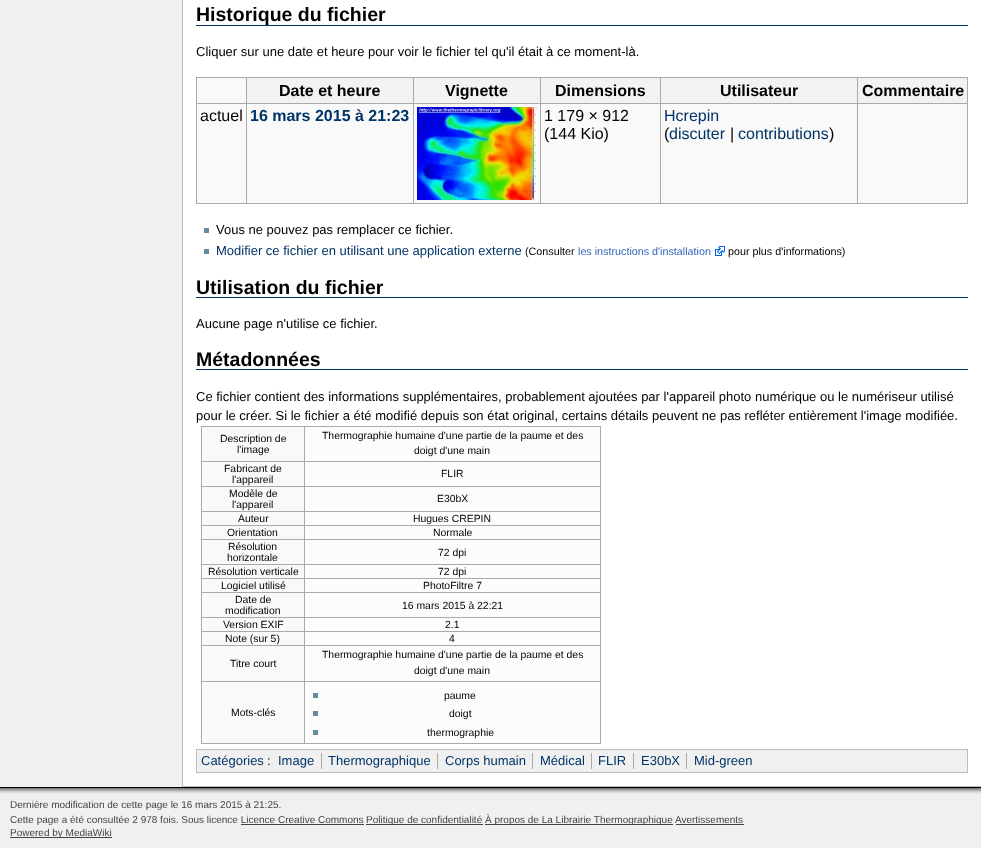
<svg xmlns="http://www.w3.org/2000/svg" width="981" height="848">
	<rect width="100%" height="100%" fill="#F0F0F0" />
	<rect x="183" y="0" width="798" height="786" fill="#FFFFFF" />
	<rect x="182" y="786" width="799" height="1" fill="#BBBBBB" />
	<rect x="182" y="0" width="1" height="787" fill="#BBBBBB" />
	<rect x="196" y="25" width="772" height="1" fill="#003366" />
	<text x="196" y="21" font-family="Liberation Sans" font-size="19.5" font-weight="700" fill="#000000">Historique du fichier</text>
	<text x="196" y="56" font-family="Liberation Sans" font-size="13" fill="#000000">Cliquer sur une date et heure pour voir le fichier tel qu'il était à ce moment-là.</text>
	<rect x="197" y="78" width="770" height="125" fill="#F9F9F9" />
	<rect x="196" y="77" width="772" height="1" fill="#AAAAAA" />
	<rect x="967" y="77" width="1" height="127" fill="#AAAAAA" />
	<rect x="196" y="203" width="772" height="1" fill="#AAAAAA" />
	<rect x="196" y="77" width="1" height="127" fill="#AAAAAA" />
	<rect x="247" y="78" width="166" height="25" fill="#F2F2F2" />
	<rect x="857" y="103" width="111" height="1" fill="#AAAAAA" />
	<rect x="857" y="103" width="1" height="101" fill="#AAAAAA" />
	<rect x="660" y="103" width="198" height="1" fill="#AAAAAA" />
	<rect x="660" y="103" width="1" height="101" fill="#AAAAAA" />
	<rect x="540" y="103" width="121" height="1" fill="#AAAAAA" />
	<rect x="540" y="103" width="1" height="101" fill="#AAAAAA" />
	<rect x="413" y="103" width="128" height="1" fill="#AAAAAA" />
	<rect x="413" y="103" width="1" height="101" fill="#AAAAAA" />
	<rect x="246" y="103" width="168" height="1" fill="#AAAAAA" />
	<rect x="246" y="103" width="1" height="101" fill="#AAAAAA" />
	<rect x="196" y="103" width="51" height="1" fill="#AAAAAA" />
	<rect x="246" y="77" width="1" height="27" fill="#AAAAAA" />
	<text x="279" y="96" font-family="Liberation Sans" font-size="16" font-weight="700" fill="#000000">Date et heure</text>
	<rect x="414" y="78" width="126" height="25" fill="#F2F2F2" />
	<rect x="413" y="77" width="1" height="27" fill="#AAAAAA" />
	<text x="445" y="96" font-family="Liberation Sans" font-size="16" font-weight="700" fill="#000000">Vignette</text>
	<rect x="541" y="78" width="119" height="25" fill="#F2F2F2" />
	<rect x="540" y="77" width="1" height="27" fill="#AAAAAA" />
	<text x="555" y="96" font-family="Liberation Sans" font-size="16" font-weight="700" fill="#000000">Dimensions</text>
	<rect x="661" y="78" width="196" height="25" fill="#F2F2F2" />
	<rect x="660" y="77" width="1" height="27" fill="#AAAAAA" />
	<text x="720" y="96" font-family="Liberation Sans" font-size="16" font-weight="700" fill="#000000">Utilisateur</text>
	<rect x="858" y="78" width="109" height="25" fill="#F2F2F2" />
	<rect x="857" y="77" width="1" height="27" fill="#AAAAAA" />
	<text x="862" y="96" font-family="Liberation Sans" font-size="16" font-weight="700" fill="#000000">Commentaire</text>
	<text x="200" y="121" font-family="Liberation Sans" font-size="16" fill="#000000">actuel</text>
	<text x="250" y="121" font-family="Liberation Sans" font-size="16" font-weight="700" fill="#003366">16 mars 2015 à 21:23</text>
	<image x="417" y="107" width="120" height="93" href="assets/img1.png" />
	<g font-family="Liberation Sans" font-size="16" fill="#000000">
		<text x="544" y="121">1 179 × 912</text>
		<text x="544" y="139">(144 Kio)</text>
	</g>
	<text x="664" y="121" font-family="Liberation Sans" font-size="16" fill="#003366">Hcrepin</text>
	<text x="664" y="139" font-family="Liberation Sans" font-size="16" fill="#000000">(</text>
	<text x="669" y="139" font-family="Liberation Sans" font-size="16" fill="#003366">discuter</text>
	<text x="730" y="139" font-family="Liberation Sans" font-size="16" fill="#000000">|</text>
	<text x="738" y="139" font-family="Liberation Sans" font-size="16" fill="#003366">contributions</text>
	<text x="829" y="139" font-family="Liberation Sans" font-size="16" fill="#000000">)</text>
	<rect x="204" y="228" width="5" height="5" fill="#638C9C" />
	<text x="216" y="234" font-family="Liberation Sans" font-size="13" fill="#000000">Vous ne pouvez pas remplacer ce fichier.</text>
	<rect x="204" y="249" width="5" height="5" fill="#638C9C" />
	<text x="216" y="255" font-family="Liberation Sans" font-size="13" fill="#003366">Modifier ce fichier en utilisant une application externe</text>
	<text x="525" y="255" font-family="Liberation Sans" font-size="10.75" fill="#000000">(Consulter</text>
	<text x="578" y="255" font-family="Liberation Sans" font-size="10.75" fill="#3366BB">les instructions d'installation</text>
	<image x="715" y="246" width="10" height="10" href="assets/img2.png" />
	<text x="728" y="255" font-family="Liberation Sans" font-size="10.75" fill="#000000">pour plus d'informations)</text>
	<rect x="196" y="297" width="772" height="1" fill="#003366" />
	<text x="196" y="294" font-family="Liberation Sans" font-size="19.5" font-weight="700" fill="#000000">Utilisation du fichier</text>
	<text x="196" y="328" font-family="Liberation Sans" font-size="13" fill="#000000">Aucune page n'utilise ce fichier.</text>
	<rect x="196" y="369" width="772" height="1" fill="#003366" />
	<text x="196" y="366" font-family="Liberation Sans" font-size="19.5" font-weight="700" fill="#000000">Métadonnées</text>
	<g font-family="Liberation Sans" font-size="13" fill="#000000">
		<text x="196" y="401">Ce fichier contient des informations supplémentaires, probablement ajoutées par l'appareil photo numérique ou le numériseur utilisé</text>
		<text x="196" y="420">pour le créer. Si le fichier a été modifié depuis son état original, certains détails peuvent ne pas refléter entièrement l'image modifiée.</text>
	</g>
	<rect x="202" y="427" width="102" height="34" fill="#F9F9F9" />
	<rect x="304" y="426" width="297" height="1" fill="#AAAAAA" />
	<rect x="304" y="461" width="297" height="1" fill="#AAAAAA" />
	<rect x="304" y="486" width="297" height="1" fill="#AAAAAA" />
	<rect x="304" y="511" width="297" height="1" fill="#AAAAAA" />
	<rect x="304" y="525" width="297" height="1" fill="#AAAAAA" />
	<rect x="304" y="539" width="297" height="1" fill="#AAAAAA" />
	<rect x="304" y="564" width="297" height="1" fill="#AAAAAA" />
	<rect x="304" y="578" width="297" height="1" fill="#AAAAAA" />
	<rect x="304" y="592" width="297" height="1" fill="#AAAAAA" />
	<rect x="304" y="617" width="297" height="1" fill="#AAAAAA" />
	<rect x="304" y="631" width="297" height="1" fill="#AAAAAA" />
	<rect x="304" y="645" width="297" height="1" fill="#AAAAAA" />
	<rect x="304" y="681" width="297" height="1" fill="#AAAAAA" />
	<rect x="600" y="681" width="1" height="63" fill="#AAAAAA" />
	<rect x="304" y="743" width="297" height="1" fill="#AAAAAA" />
	<rect x="304" y="681" width="1" height="63" fill="#AAAAAA" />
	<rect x="201" y="681" width="104" height="1" fill="#AAAAAA" />
	<rect x="304" y="645" width="1" height="37" fill="#AAAAAA" />
	<rect x="201" y="645" width="104" height="1" fill="#AAAAAA" />
	<rect x="304" y="631" width="1" height="15" fill="#AAAAAA" />
	<rect x="201" y="631" width="104" height="1" fill="#AAAAAA" />
	<rect x="304" y="617" width="1" height="15" fill="#AAAAAA" />
	<rect x="201" y="617" width="104" height="1" fill="#AAAAAA" />
	<rect x="304" y="592" width="1" height="26" fill="#AAAAAA" />
	<rect x="201" y="592" width="104" height="1" fill="#AAAAAA" />
	<rect x="304" y="578" width="1" height="15" fill="#AAAAAA" />
	<rect x="201" y="578" width="104" height="1" fill="#AAAAAA" />
	<rect x="304" y="564" width="1" height="15" fill="#AAAAAA" />
	<rect x="201" y="564" width="104" height="1" fill="#AAAAAA" />
	<rect x="304" y="539" width="1" height="26" fill="#AAAAAA" />
	<rect x="201" y="539" width="104" height="1" fill="#AAAAAA" />
	<rect x="304" y="525" width="1" height="15" fill="#AAAAAA" />
	<rect x="201" y="525" width="104" height="1" fill="#AAAAAA" />
	<rect x="304" y="511" width="1" height="15" fill="#AAAAAA" />
	<rect x="201" y="511" width="104" height="1" fill="#AAAAAA" />
	<rect x="304" y="486" width="1" height="26" fill="#AAAAAA" />
	<rect x="201" y="486" width="104" height="1" fill="#AAAAAA" />
	<rect x="304" y="461" width="1" height="26" fill="#AAAAAA" />
	<rect x="201" y="461" width="104" height="1" fill="#AAAAAA" />
	<rect x="304" y="426" width="1" height="36" fill="#AAAAAA" />
	<rect x="201" y="426" width="104" height="1" fill="#AAAAAA" />
	<rect x="201" y="743" width="104" height="1" fill="#AAAAAA" />
	<rect x="201" y="681" width="1" height="63" fill="#AAAAAA" />
	<rect x="201" y="645" width="1" height="37" fill="#AAAAAA" />
	<rect x="201" y="631" width="1" height="15" fill="#AAAAAA" />
	<rect x="201" y="617" width="1" height="15" fill="#AAAAAA" />
	<rect x="201" y="592" width="1" height="26" fill="#AAAAAA" />
	<rect x="201" y="578" width="1" height="15" fill="#AAAAAA" />
	<rect x="201" y="564" width="1" height="15" fill="#AAAAAA" />
	<rect x="201" y="539" width="1" height="26" fill="#AAAAAA" />
	<rect x="201" y="525" width="1" height="15" fill="#AAAAAA" />
	<rect x="201" y="511" width="1" height="15" fill="#AAAAAA" />
	<rect x="201" y="486" width="1" height="26" fill="#AAAAAA" />
	<rect x="201" y="461" width="1" height="26" fill="#AAAAAA" />
	<rect x="201" y="426" width="1" height="36" fill="#AAAAAA" />
	<g font-family="Liberation Sans" font-size="10.4" fill="#000000">
		<text x="220" y="442">Description de</text>
		<text x="237" y="453">l'image</text>
	</g>
	<rect x="305" y="427" width="295" height="34" fill="#FCFCFC" />
	<rect x="600" y="645" width="1" height="37" fill="#AAAAAA" />
	<rect x="600" y="631" width="1" height="15" fill="#AAAAAA" />
	<rect x="600" y="617" width="1" height="15" fill="#AAAAAA" />
	<rect x="600" y="592" width="1" height="26" fill="#AAAAAA" />
	<rect x="600" y="578" width="1" height="15" fill="#AAAAAA" />
	<rect x="600" y="564" width="1" height="15" fill="#AAAAAA" />
	<rect x="600" y="539" width="1" height="26" fill="#AAAAAA" />
	<rect x="600" y="525" width="1" height="15" fill="#AAAAAA" />
	<rect x="600" y="511" width="1" height="15" fill="#AAAAAA" />
	<rect x="600" y="486" width="1" height="26" fill="#AAAAAA" />
	<rect x="600" y="461" width="1" height="26" fill="#AAAAAA" />
	<rect x="600" y="426" width="1" height="36" fill="#AAAAAA" />
	<g font-family="Liberation Sans" font-size="10.4" fill="#000000">
		<text x="322" y="439">Thermographie humaine d'une partie de la paume et des</text>
		<text x="414" y="454">doigt d'une main</text>
	</g>
	<rect x="202" y="462" width="102" height="24" fill="#F9F9F9" />
	<g font-family="Liberation Sans" font-size="10.4" fill="#000000">
		<text x="224" y="472">Fabricant de</text>
		<text x="232" y="483">l'appareil</text>
	</g>
	<rect x="305" y="462" width="295" height="24" fill="#FCFCFC" />
	<text x="441" y="477" font-family="Liberation Sans" font-size="10.4" fill="#000000">FLIR</text>
	<rect x="202" y="487" width="102" height="24" fill="#F9F9F9" />
	<g font-family="Liberation Sans" font-size="10.4" fill="#000000">
		<text x="229" y="497">Modèle de</text>
		<text x="232" y="508">l'appareil</text>
	</g>
	<rect x="305" y="487" width="295" height="24" fill="#FCFCFC" />
	<text x="437" y="502" font-family="Liberation Sans" font-size="10.4" fill="#000000">E30bX</text>
	<rect x="202" y="512" width="102" height="13" fill="#F9F9F9" />
	<text x="238" y="522" font-family="Liberation Sans" font-size="10.4" fill="#000000">Auteur</text>
	<rect x="305" y="512" width="295" height="13" fill="#FCFCFC" />
	<text x="413" y="522" font-family="Liberation Sans" font-size="10.4" fill="#000000">Hugues CREPIN</text>
	<rect x="202" y="526" width="102" height="13" fill="#F9F9F9" />
	<text x="227" y="536" font-family="Liberation Sans" font-size="10.4" fill="#000000">Orientation</text>
	<rect x="305" y="526" width="295" height="13" fill="#FCFCFC" />
	<text x="433" y="536" font-family="Liberation Sans" font-size="10.4" fill="#000000">Normale</text>
	<rect x="202" y="540" width="102" height="24" fill="#F9F9F9" />
	<g font-family="Liberation Sans" font-size="10.4" fill="#000000">
		<text x="228" y="550">Résolution</text>
		<text x="227" y="561">horizontale</text>
	</g>
	<rect x="305" y="540" width="295" height="24" fill="#FCFCFC" />
	<text x="438" y="556" font-family="Liberation Sans" font-size="10.4" fill="#000000">72 dpi</text>
	<rect x="202" y="565" width="102" height="13" fill="#F9F9F9" />
	<text x="208" y="575" font-family="Liberation Sans" font-size="10.4" fill="#000000">Résolution verticale</text>
	<rect x="305" y="565" width="295" height="13" fill="#FCFCFC" />
	<text x="438" y="575" font-family="Liberation Sans" font-size="10.4" fill="#000000">72 dpi</text>
	<rect x="202" y="579" width="102" height="13" fill="#F9F9F9" />
	<text x="221" y="589" font-family="Liberation Sans" font-size="10.4" fill="#000000">Logiciel utilisé</text>
	<rect x="305" y="579" width="295" height="13" fill="#FCFCFC" />
	<text x="423" y="589" font-family="Liberation Sans" font-size="10.4" fill="#000000">PhotoFiltre 7</text>
	<rect x="202" y="593" width="102" height="24" fill="#F9F9F9" />
	<g font-family="Liberation Sans" font-size="10.4" fill="#000000">
		<text x="235" y="603">Date de</text>
		<text x="225" y="614">modification</text>
	</g>
	<rect x="305" y="593" width="295" height="24" fill="#FCFCFC" />
	<text x="402" y="609" font-family="Liberation Sans" font-size="10.4" fill="#000000">16 mars 2015 à 22:21</text>
	<rect x="202" y="618" width="102" height="13" fill="#F9F9F9" />
	<text x="223" y="628" font-family="Liberation Sans" font-size="10.4" fill="#000000">Version EXIF</text>
	<rect x="305" y="618" width="295" height="13" fill="#FCFCFC" />
	<text x="445" y="628" font-family="Liberation Sans" font-size="10.4" fill="#000000">2.1</text>
	<rect x="202" y="632" width="102" height="13" fill="#F9F9F9" />
	<text x="225" y="642" font-family="Liberation Sans" font-size="10.4" fill="#000000">Note (sur 5)</text>
	<rect x="305" y="632" width="295" height="13" fill="#FCFCFC" />
	<text x="449" y="642" font-family="Liberation Sans" font-size="10.4" fill="#000000">4</text>
	<rect x="202" y="646" width="102" height="35" fill="#F9F9F9" />
	<text x="230" y="667" font-family="Liberation Sans" font-size="10.4" fill="#000000">Titre court</text>
	<rect x="305" y="646" width="295" height="35" fill="#FCFCFC" />
	<g font-family="Liberation Sans" font-size="10.4" fill="#000000">
		<text x="322" y="658">Thermographie humaine d'une partie de la paume et des</text>
		<text x="414" y="674">doigt d'une main</text>
	</g>
	<rect x="202" y="682" width="102" height="61" fill="#F9F9F9" />
	<text x="231" y="716" font-family="Liberation Sans" font-size="10.4" fill="#000000">Mots-clés</text>
	<rect x="305" y="682" width="295" height="61" fill="#FCFCFC" />
	<rect x="313" y="693" width="5" height="5" fill="#638C9C" />
	<text x="444" y="699" font-family="Liberation Sans" font-size="10.4" fill="#000000">paume</text>
	<rect x="313" y="711" width="5" height="5" fill="#638C9C" />
	<text x="449" y="717" font-family="Liberation Sans" font-size="10.4" fill="#000000">doigt</text>
	<rect x="313" y="730" width="5" height="5" fill="#638C9C" />
	<text x="427" y="736" font-family="Liberation Sans" font-size="10.4" fill="#000000">thermographie</text>
	<rect x="196.5" y="749.5" width="771" height="23" fill="#F0F0F0" stroke="#BBBBBB" />
	<text x="201" y="765" font-family="Liberation Sans" font-size="13" fill="#003366">Catégories</text>
	<text x="267" y="765" font-family="Liberation Sans" font-size="13" fill="#000000">:</text>
	<text x="278" y="765" font-family="Liberation Sans" font-size="13" fill="#003366">Image</text>
	<rect x="321" y="753" width="1" height="16" fill="#AAAAAA" />
	<text x="328" y="765" font-family="Liberation Sans" font-size="13" fill="#003366">Thermographique</text>
	<rect x="437" y="753" width="1" height="16" fill="#AAAAAA" />
	<text x="445" y="765" font-family="Liberation Sans" font-size="13" fill="#003366">Corps humain</text>
	<rect x="532" y="753" width="1" height="16" fill="#AAAAAA" />
	<text x="540" y="765" font-family="Liberation Sans" font-size="13" fill="#003366">Médical</text>
	<rect x="591" y="753" width="1" height="16" fill="#AAAAAA" />
	<text x="598" y="765" font-family="Liberation Sans" font-size="13" fill="#003366">FLIR</text>
	<rect x="633" y="753" width="1" height="16" fill="#AAAAAA" />
	<text x="641" y="765" font-family="Liberation Sans" font-size="13" fill="#003366">E30bX</text>
	<rect x="686" y="753" width="1" height="16" fill="#AAAAAA" />
	<text x="694" y="765" font-family="Liberation Sans" font-size="13" fill="#003366">Mid-green</text>
	<image x="0" y="787" width="981" height="7" href="assets/img3.png" />
	<g font-family="Liberation Sans" font-size="10" fill="#444444">
		<text x="10" y="808">Dernière modification de cette page le 16 mars 2015 à 21:25.</text>
		<text x="10" y="823">Cette page a été consultée 2 978 fois. Sous licence Licence Creative Commons</text>
	</g>
	<rect x="366" y="824" width="117" height="1" fill="#444444" />
	<text x="366" y="823" font-family="Liberation Sans" font-size="10" fill="#444444">Politique de confidentialité</text>
	<rect x="485" y="824" width="188" height="1" fill="#444444" />
	<text x="485" y="823" font-family="Liberation Sans" font-size="10" fill="#444444">À propos de La Librairie Thermographique Avertissements</text>
	<rect x="241" y="824" width="123" height="1" fill="#444444" />
	<rect x="676" y="824" width="68" height="1" fill="#444444" />
	<rect x="10" y="837" width="102" height="1" fill="#444444" />
	<text x="10" y="836" font-family="Liberation Sans" font-size="10" fill="#444444">Powered by MediaWiki</text>
</svg>
